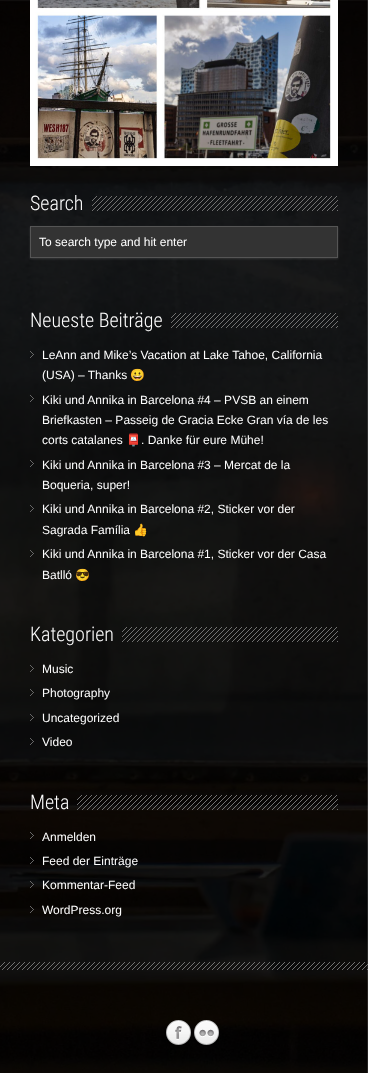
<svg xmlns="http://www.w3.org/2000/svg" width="368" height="1073">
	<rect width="100%" height="100%" fill="#FFFFFF" />
	<image x="0" y="0" width="368" height="1073" href="assets/img1.png" />
	<image x="30" y="0" width="308" height="166" href="assets/img2.png" />
	<text x="30" y="210" font-family="Roboto Condensed" font-size="20" font-weight="300" fill="#FFFFFF">Search</text>
	<image x="92" y="196" width="246" height="15" href="assets/img3.png" />
	<rect x="30" y="227" width="308" height="32" fill="#B4B4B4" fill-opacity="0.2" filter="blur(1px)" />
	<rect x="30.5" y="226.5" width="307" height="31" fill="#333333" stroke="#555555" />
	<text x="39" y="246" font-family="Liberation Sans" font-size="12" fill="#FFFFFF">To search type and hit enter</text>
	<text x="30" y="327" font-family="Roboto Condensed" font-size="20" font-weight="300" fill="#FFFFFF">Neueste Beiträge</text>
	<image x="171" y="313" width="167" height="15" href="assets/img4.png" />
	<image x="30" y="351" width="4" height="7" href="assets/img5.png" />
	<g font-family="Liberation Sans" font-size="12" fill="#FFFFFF">
		<text x="42" y="359">LeAnn and Mike’s Vacation at Lake Tahoe, California</text>
		<text x="42" y="379">(USA) – Thanks</text>
	</g>
	<text x="130" y="379" font-family="Noto Color Emoji" font-size="12" fill="#FFFFFF">😀</text>
	<image x="30" y="395" width="4" height="7" href="assets/img6.png" />
	<g font-family="Liberation Sans" font-size="12" fill="#FFFFFF">
		<text x="42" y="404">Kiki und Annika in Barcelona #4 – PVSB an einem</text>
		<text x="42" y="424">Briefkasten – Passeig de Gracia Ecke Gran vía de les</text>
		<text x="42" y="444">corts catalanes</text>
	</g>
	<text x="126" y="444" font-family="Noto Color Emoji" font-size="12" fill="#FFFFFF">📮</text>
	<text x="141" y="444" font-family="Liberation Sans" font-size="12" fill="#FFFFFF">. Danke für eure Mühe!</text>
	<image x="30" y="460" width="4" height="7" href="assets/img7.png" />
	<g font-family="Liberation Sans" font-size="12" fill="#FFFFFF">
		<text x="42" y="469">Kiki und Annika in Barcelona #3 – Mercat de la</text>
		<text x="42" y="489">Boqueria, super!</text>
	</g>
	<image x="30" y="505" width="4" height="7" href="assets/img8.png" />
	<g font-family="Liberation Sans" font-size="12" fill="#FFFFFF">
		<text x="42" y="513">Kiki und Annika in Barcelona #2, Sticker vor der</text>
		<text x="42" y="534">Sagrada Família</text>
	</g>
	<text x="133" y="534" font-family="Noto Color Emoji" font-size="12" fill="#FFFFFF">👍</text>
	<image x="30" y="550" width="4" height="7" href="assets/img9.png" />
	<g font-family="Liberation Sans" font-size="12" fill="#FFFFFF">
		<text x="42" y="558">Kiki und Annika in Barcelona #1, Sticker vor der Casa</text>
		<text x="42" y="579">Batlló</text>
	</g>
	<text x="75" y="579" font-family="Noto Color Emoji" font-size="12" fill="#FFFFFF">😎</text>
	<text x="30" y="641" font-family="Roboto Condensed" font-size="20" font-weight="300" fill="#FFFFFF">Kategorien</text>
	<image x="122" y="627" width="216" height="15" href="assets/img10.png" />
	<image x="30" y="665" width="4" height="7" href="assets/img11.png" />
	<text x="42" y="673" font-family="Liberation Sans" font-size="12" fill="#FFFFFF">Music</text>
	<image x="30" y="689" width="4" height="7" href="assets/img12.png" />
	<text x="42" y="697" font-family="Liberation Sans" font-size="12" fill="#FFFFFF">Photography</text>
	<image x="30" y="714" width="4" height="7" href="assets/img13.png" />
	<text x="42" y="722" font-family="Liberation Sans" font-size="12" fill="#FFFFFF">Uncategorized</text>
	<image x="30" y="738" width="4" height="7" href="assets/img14.png" />
	<text x="42" y="746" font-family="Liberation Sans" font-size="12" fill="#FFFFFF">Video</text>
	<text x="30" y="809" font-family="Roboto Condensed" font-size="20" font-weight="300" fill="#FFFFFF">Meta</text>
	<image x="77" y="795" width="261" height="15" href="assets/img15.png" />
	<image x="30" y="832" width="4" height="7" href="assets/img16.png" />
	<text x="42" y="841" font-family="Liberation Sans" font-size="12" fill="#FFFFFF">Anmelden</text>
	<image x="30" y="857" width="4" height="7" href="assets/img17.png" />
	<text x="42" y="865" font-family="Liberation Sans" font-size="12" fill="#FFFFFF">Feed der Einträge</text>
	<image x="30" y="881" width="4" height="7" href="assets/img18.png" />
	<text x="42" y="889" font-family="Liberation Sans" font-size="12" fill="#FFFFFF">Kommentar-Feed</text>
	<image x="30" y="906" width="4" height="7" href="assets/img19.png" />
	<text x="42" y="914" font-family="Liberation Sans" font-size="12" fill="#FFFFFF">WordPress.org</text>
	<image x="0" y="962" width="368" height="8" href="assets/img20.png" />
	<image x="166" y="1020" width="25" height="25" href="assets/img21.png" />
	<image x="194" y="1020" width="25" height="25" href="assets/img22.png" />
</svg>
